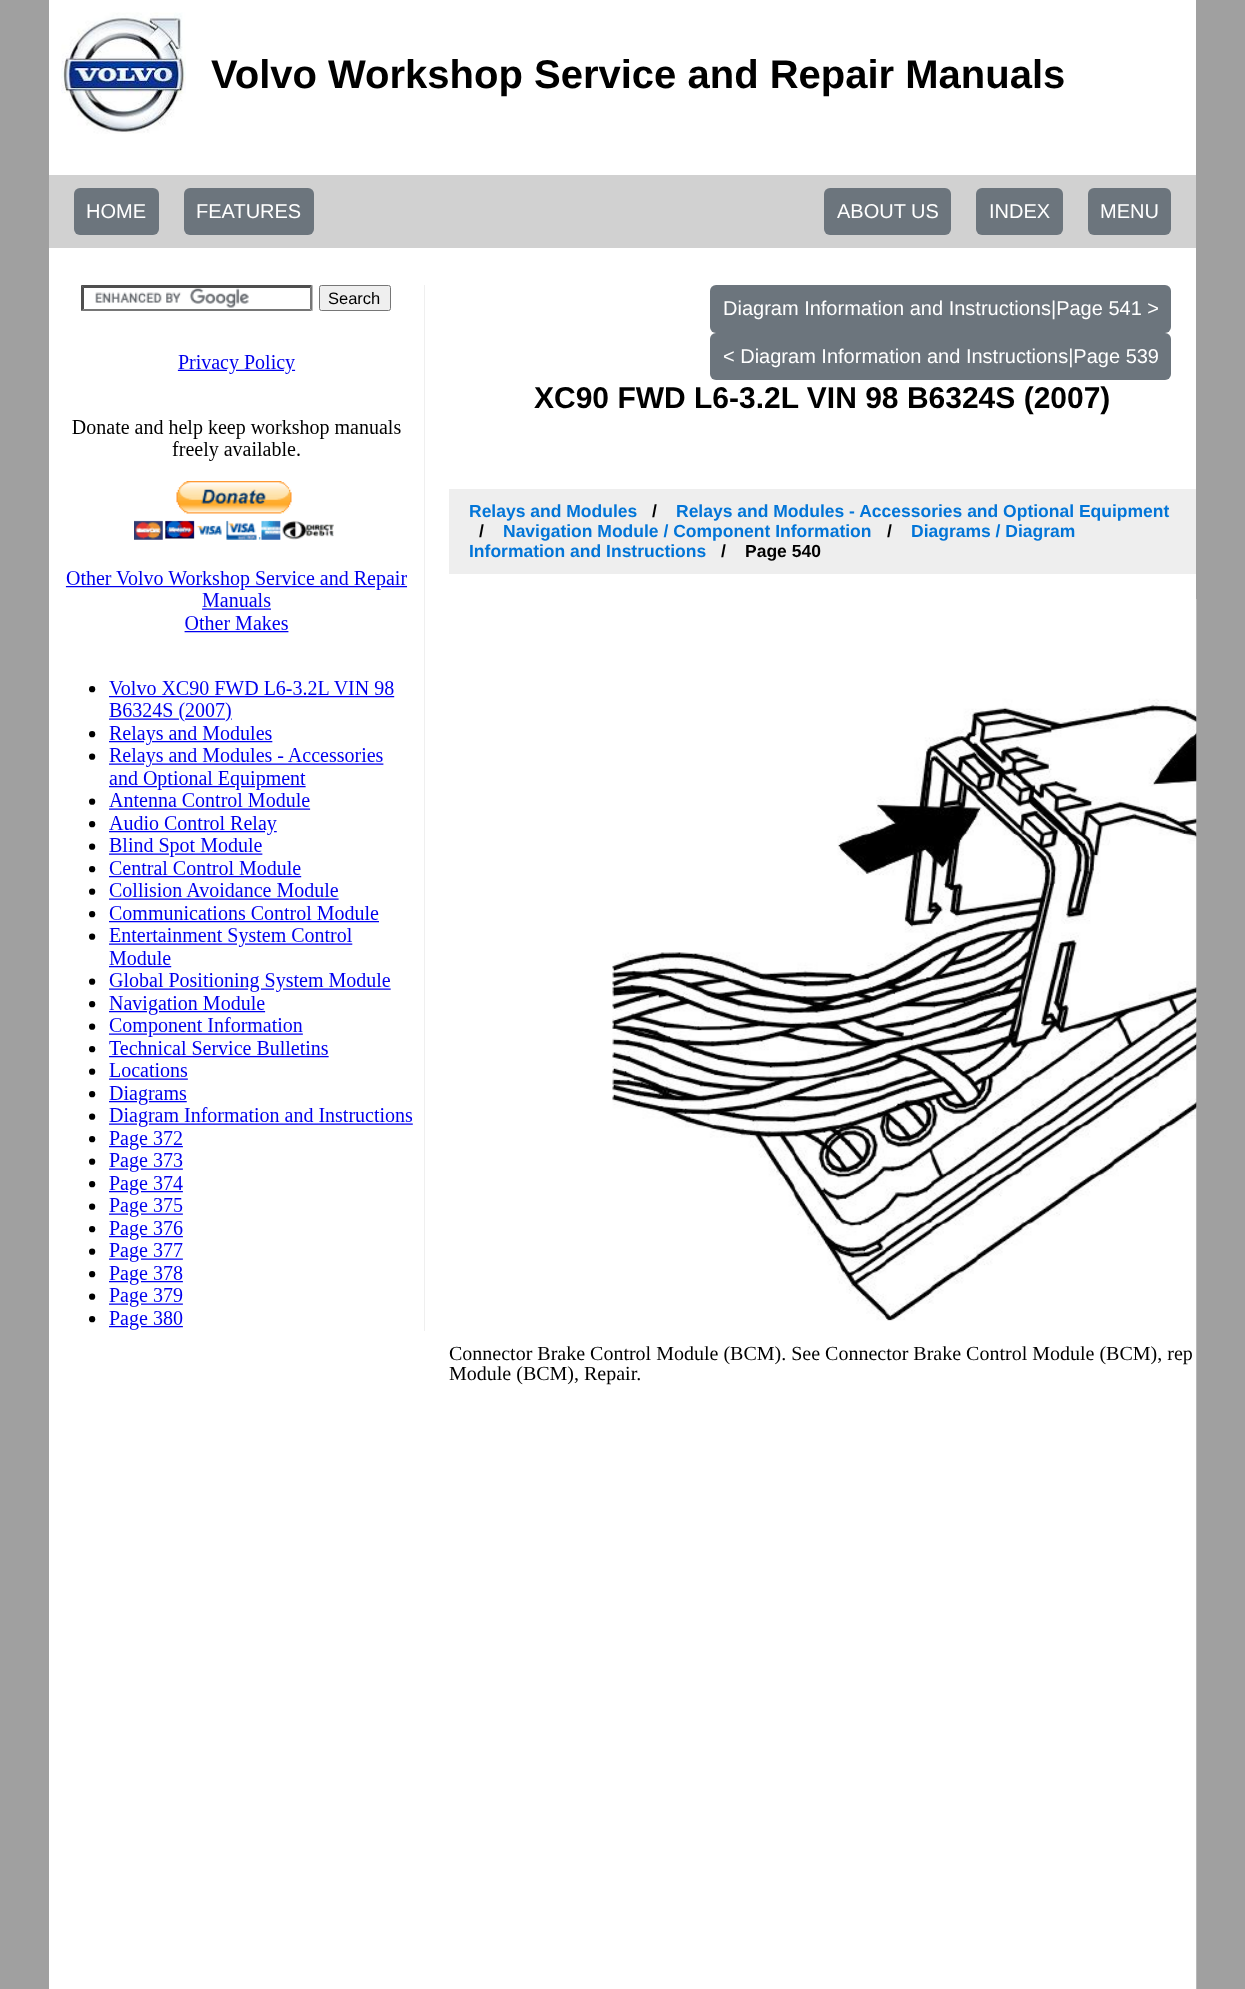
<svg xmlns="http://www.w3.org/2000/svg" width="1245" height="1989">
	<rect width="100%" height="100%" fill="#A0A0A0" />
	<rect x="49" y="0" width="1147" height="1989" fill="#FFFFFF" />
	<image x="61" y="12" width="125" height="122" href="assets/img1.png" />
	<text x="211" y="88" font-family="Liberation Sans" font-size="40" font-weight="700" fill="#000000">Volvo Workshop Service and Repair Manuals</text>
	<rect x="49" y="175" width="1147" height="73" fill="#D1D1D1" />
	<rect x="74" y="188" width="85" height="47" rx="6" fill="#6C757D" />
	<text x="86" y="218" font-family="Liberation Sans" font-size="20" fill="#FFFFFF">HOME</text>
	<rect x="184" y="188" width="130" height="47" rx="6" fill="#6C757D" />
	<text x="196" y="218" font-family="Liberation Sans" font-size="20" fill="#FFFFFF">FEATURES</text>
	<rect x="824" y="188" width="127" height="47" rx="6" fill="#6C757D" />
	<text x="837" y="218" font-family="Liberation Sans" font-size="20" fill="#FFFFFF">ABOUT US</text>
	<rect x="976" y="188" width="87" height="47" rx="6" fill="#6C757D" />
	<text x="989" y="218" font-family="Liberation Sans" font-size="20" fill="#FFFFFF">INDEX</text>
	<rect x="1088" y="188" width="83" height="47" rx="6" fill="#6C757D" />
	<text x="1100" y="218" font-family="Liberation Sans" font-size="20" fill="#FFFFFF">MENU</text>
	<rect x="424" y="285" width="1" height="1046" fill="#EFEFEF" />
	<image x="95" y="288" width="154" height="20" href="assets/img2.png" />
	<path d="M81 285H312L310 288H84Z" fill="#4F4F4F" />
	<path d="M312.5 285V311L310 309V287.5Z" fill="#767676" />
	<path d="M312 311H81L84 309H310Z" fill="#767676" />
	<path d="M81 311V285L84 287.5V309Z" fill="#4F4F4F" />
	<rect x="319.5" y="285.5" width="71" height="25" rx="2" fill="#EFEFEF" stroke="#767676" />
	<text x="328" y="304" font-family="Liberation Sans" font-size="16.5" fill="#000000">Search</text>
	<image x="65" y="355" width="348" height="975" href="assets/img3.png" />
	<rect x="710" y="285" width="461" height="48" rx="6" fill="#6C757D" />
	<text x="723" y="315" font-family="Liberation Sans" font-size="20" fill="#FFFFFF">Diagram Information and Instructions|Page 541 &gt;</text>
	<rect x="710" y="333" width="461" height="47" rx="6" fill="#6C757D" />
	<text x="723" y="363" font-family="Liberation Sans" font-size="20" fill="#FFFFFF">&lt; Diagram Information and Instructions|Page 539</text>
	<text x="534" y="408" font-family="Liberation Sans" font-size="30" font-weight="700" fill="#000000">XC90 FWD L6-3.2L VIN 98 B6324S (2007)</text>
	<rect x="449" y="489" width="747" height="85" fill="#EEEEEE" />
	<text x="469" y="517" font-family="Liberation Sans" font-size="17.5" font-weight="700" fill="#0275D8">Relays and Modules</text>
	<text x="652" y="517" font-family="Liberation Sans" font-size="17.5" font-weight="700" fill="#000000">/</text>
	<text x="676" y="517" font-family="Liberation Sans" font-size="17.5" font-weight="700" fill="#0275D8">Relays and Modules - Accessories and Optional Equipment</text>
	<text x="479" y="537" font-family="Liberation Sans" font-size="17.5" font-weight="700" fill="#000000">/</text>
	<text x="503" y="537" font-family="Liberation Sans" font-size="17.5" font-weight="700" fill="#0275D8">Navigation Module / Component Information</text>
	<text x="887" y="537" font-family="Liberation Sans" font-size="17.5" font-weight="700" fill="#000000">/</text>
	<g font-family="Liberation Sans" font-size="17.5" font-weight="700" fill="#0275D8">
		<text x="911" y="537">Diagrams / Diagram</text>
		<text x="469" y="557">Information and Instructions</text>
	</g>
	<g font-family="Liberation Sans" font-size="17.5" font-weight="700" fill="#000000">
		<text x="721" y="557">/</text>
		<text x="745" y="557">Page 540</text>
	</g>
	<image x="612" y="599" width="585" height="1390" href="assets/img4.png" />
	<g font-family="Liberation Serif" font-size="20" fill="#000000">
		<text x="449" y="1360">Connector Brake Control Module (BCM). See Connector Brake Control Module (BCM), rep</text>
		<text x="449" y="1380">Module (BCM), Repair.</text>
	</g>
</svg>
